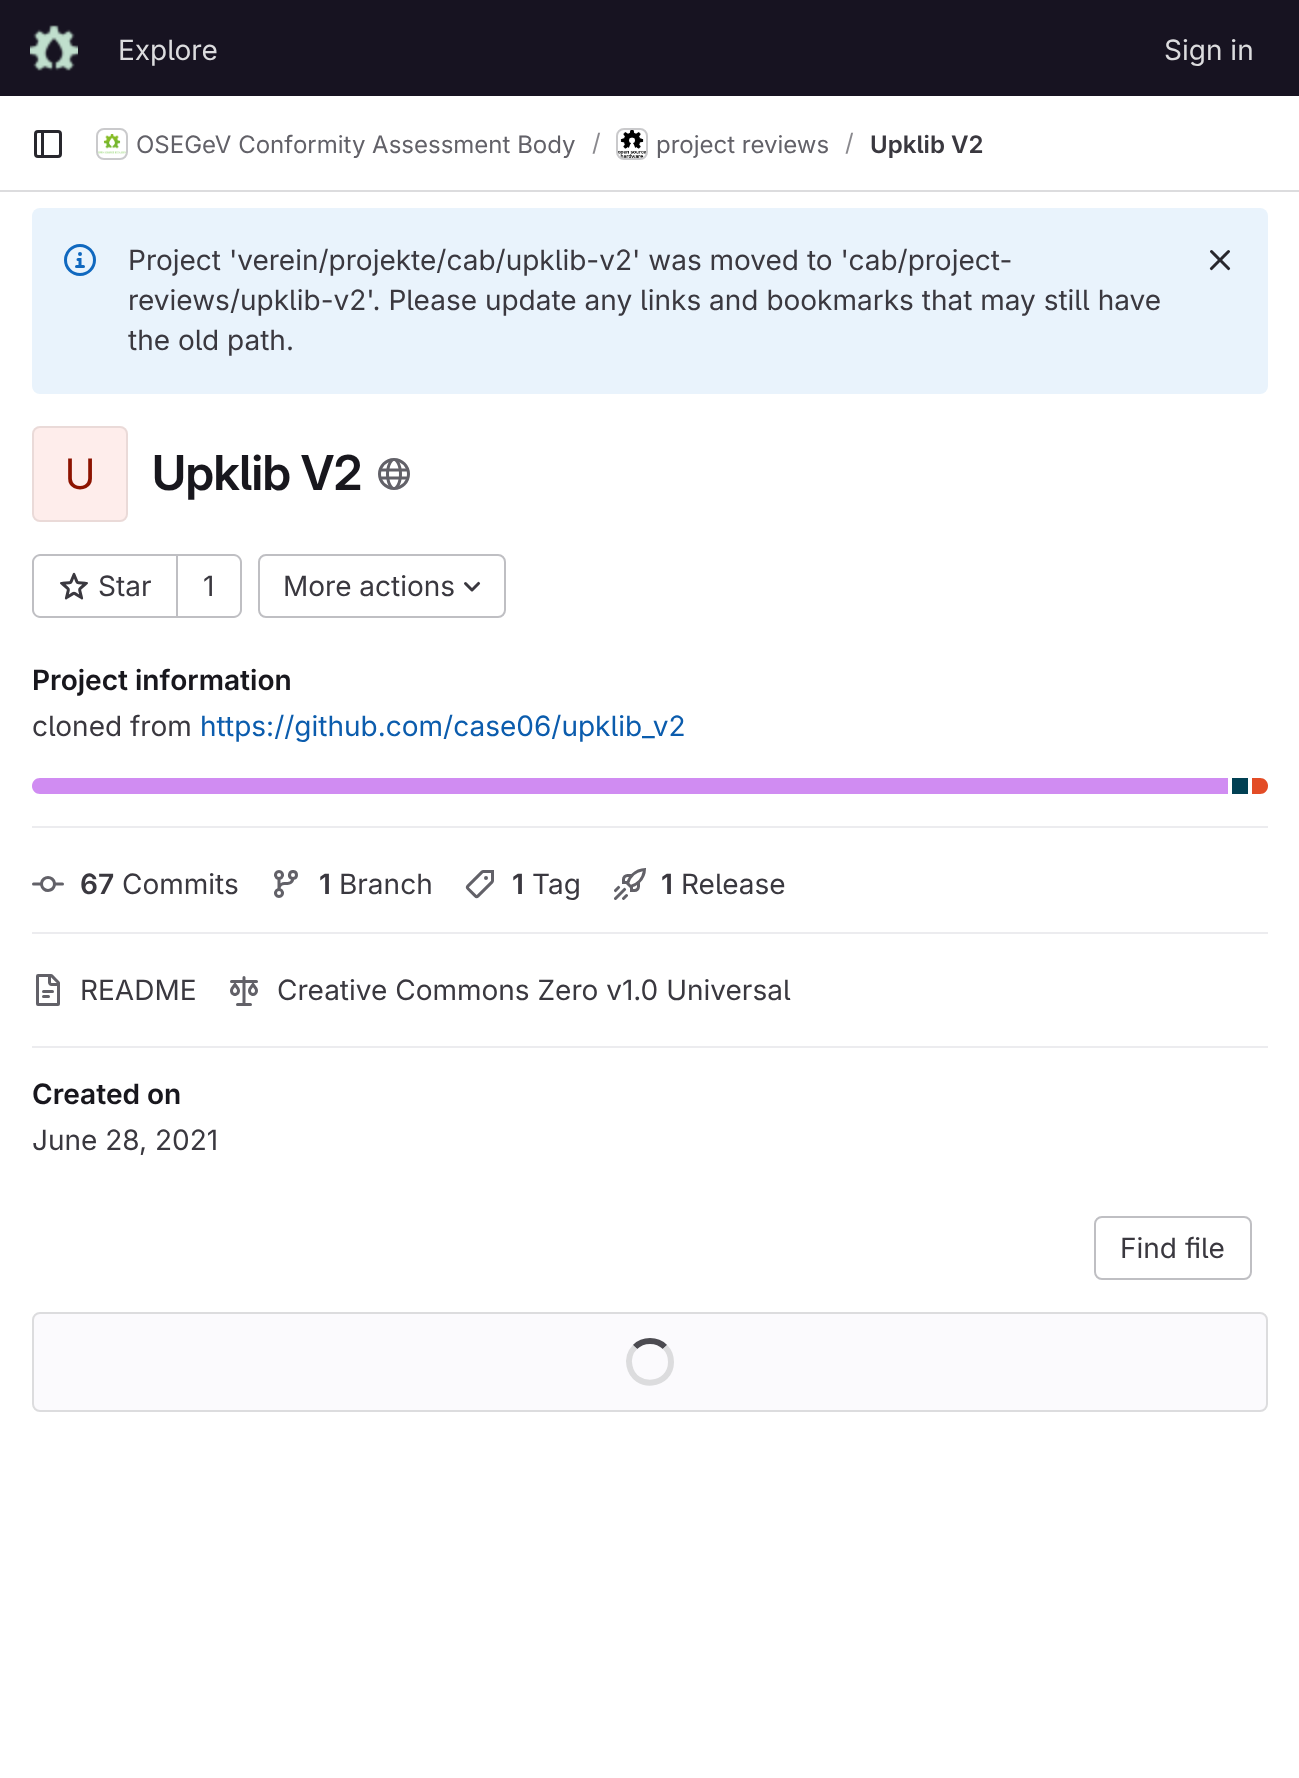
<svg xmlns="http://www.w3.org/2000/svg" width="1299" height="1778">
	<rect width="100%" height="100%" fill="#FFFFFF" />
	<rect x="0" y="0" width="1299" height="96" fill="#171321" />
	<image x="30" y="25" width="48" height="46" href="assets/img1.png" />
	<g font-family="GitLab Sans" font-size="28" fill="#DCDCDE">
		<text x="118" y="60">Explore</text>
		<text x="1164" y="60">Sign in</text>
	</g>
	<rect x="0" y="190" width="1299" height="2" fill="#DCDCDE" />
	<image x="34" y="130" width="28" height="28" href="assets/img2.png" />
	<rect x="97" y="129" width="30" height="30" rx="7" fill="none" stroke="#DCDCDE" stroke-width="2" />
	<image x="98" y="134" width="28" height="20" href="assets/img3.png" />
	<rect x="97" y="129" width="30" height="30" rx="7" fill="none" stroke="#050506" stroke-opacity="0.08" stroke-width="2" />
	<text x="136" y="153" font-family="GitLab Sans" font-size="24" fill="#626168">OSEGeV Conformity Assessment Body</text>
	<text x="592" y="151" font-family="GitLab Sans" font-size="24" fill="#89888D">/</text>
	<rect x="617" y="129" width="30" height="30" rx="7" fill="none" stroke="#DCDCDE" stroke-width="2" />
	<image x="618" y="130" width="28" height="28" href="assets/img4.png" />
	<rect x="617" y="129" width="30" height="30" rx="7" fill="none" stroke="#050506" stroke-opacity="0.08" stroke-width="2" />
	<text x="656" y="153" font-family="GitLab Sans" font-size="24" fill="#626168">project reviews</text>
	<text x="845" y="151" font-family="GitLab Sans" font-size="24" fill="#89888D">/</text>
	<text x="870" y="153" font-family="'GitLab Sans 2'" font-size="24" font-weight="600" fill="#3A383F">Upklib V2</text>
	<rect x="32" y="208" width="1236" height="186" rx="8" fill="#E9F3FC" />
	<image x="64" y="244" width="32" height="32" href="assets/img5.png" />
	<g font-family="GitLab Sans" font-size="28" fill="#3A383F">
		<text x="128" y="270">Project 'verein/projekte/cab/upklib-v2' was moved to 'cab/project-</text>
		<text x="128" y="310">reviews/upklib-v2'. Please update any links and bookmarks that may still have</text>
		<text x="128" y="350">the old path.</text>
	</g>
	<image x="1209" y="250" width="22" height="21" href="assets/img6.png" />
	<rect x="32" y="426" width="96" height="96" rx="8" fill="#FEEDEB" />
	<rect x="33" y="427" width="94" height="94" rx="7" fill="none" stroke="#050506" stroke-opacity="0.08" stroke-width="2" />
	<text x="65" y="489" font-family="'GitLab Sans 2'" font-size="42" fill="#8D1300">U</text>
	<text x="152" y="490" font-family="GitLab Sans" font-size="48" font-weight="600" letter-spacing="-0.5" fill="#18171D">Upklib V2</text>
	<image x="378" y="458" width="32" height="32" href="assets/img7.png" />
	<path d="M40 554H176V618H40C36 618 32 614 32 610V562C32 558 36 554 40 554ZM40 556H176V616H40C37 616 34 613 34 610V562C34 559 37 556 40 556Z" fill="#BFBFC3" fill-rule="evenodd" />
	<image x="60" y="572" width="28" height="28" href="assets/img8.png" />
	<text x="98" y="596" font-family="GitLab Sans" font-size="28" fill="#3A383F">Star</text>
	<path d="M178 554H234C238 554 242 558 242 562V610C242 614 238 618 234 618H178ZM178 556H234C237 556 240 559 240 562V610C240 613 237 616 234 616H178Z" fill="#BFBFC3" fill-rule="evenodd" />
	<rect x="176" y="554" width="2" height="64" fill="#BFBFC3" />
	<text x="203" y="596" font-family="GitLab Sans" font-size="28" fill="#3A383F">1</text>
	<rect x="259" y="555" width="246" height="62" rx="7" fill="none" stroke="#BFBFC3" stroke-width="2" />
	<text x="283" y="596" font-family="GitLab Sans" font-size="28" fill="#3A383F">More actions</text>
	<image x="464" y="581" width="17" height="11" href="assets/img9.png" />
	<rect x="32" y="826" width="1236" height="2" fill="#ECECEF" />
	<text x="32" y="690" font-family="'GitLab Sans 2'" font-size="28" font-weight="600" fill="#18171D">Project information</text>
	<text x="32" y="736" font-family="GitLab Sans" font-size="28" fill="#3A383F">cloned from</text>
	<text x="200" y="736" font-family="GitLab Sans" font-size="28" fill="#0B5CAD">https://github.com/case06/upklib_v2</text>
	<path d="M40 778H1228V794H40C35.5 794 32 790.5 32 786C32 781.5 35.5 778 40 778Z" fill="#D08CF2" />
	<rect x="1232" y="778" width="16" height="16" fill="#014053" />
	<path d="M1252 778H1260C1264.5 778 1268 781.5 1268 786C1268 790.5 1264.5 794 1260 794H1252Z" fill="#E34C26" />
	<rect x="32" y="932" width="1236" height="2" fill="#ECECEF" />
	<image x="32" y="876" width="32" height="16" href="assets/img10.png" />
	<text x="80" y="894" font-family="'GitLab Sans 2'" font-size="28" font-weight="600" fill="#3A383F">67</text>
	<text x="122" y="894" font-family="GitLab Sans" font-size="28" fill="#3A383F">Commits</text>
	<image x="274" y="870" width="24" height="28" href="assets/img11.png" />
	<text x="319" y="894" font-family="'GitLab Sans 2'" font-size="28" font-weight="600" fill="#3A383F">1</text>
	<text x="339" y="894" font-family="GitLab Sans" font-size="28" fill="#3A383F">Branch</text>
	<image x="465" y="870" width="29" height="29" href="assets/img12.png" />
	<text x="512" y="894" font-family="'GitLab Sans 2'" font-size="28" font-weight="600" fill="#3A383F">1</text>
	<text x="532" y="894" font-family="GitLab Sans" font-size="28" fill="#3A383F">Tag</text>
	<image x="614" y="868" width="32" height="32" href="assets/img13.png" />
	<text x="661" y="894" font-family="'GitLab Sans 2'" font-size="28" font-weight="600" fill="#3A383F">1</text>
	<text x="681" y="894" font-family="GitLab Sans" font-size="28" fill="#3A383F">Release</text>
	<rect x="32" y="1046" width="1236" height="2" fill="#ECECEF" />
	<image x="36" y="974" width="24" height="32" href="assets/img14.png" />
	<text x="80" y="1000" font-family="GitLab Sans" font-size="28" fill="#3A383F">README</text>
	<image x="230" y="976" width="28" height="30" href="assets/img15.png" />
	<text x="277" y="1000" font-family="GitLab Sans" font-size="28" fill="#3A383F">Creative Commons Zero v1.0 Universal</text>
	<text x="32" y="1104" font-family="'GitLab Sans 2'" font-size="28" font-weight="600" fill="#18171D">Created on</text>
	<text x="32" y="1150" font-family="GitLab Sans" font-size="28" fill="#3A383F">June 28, 2021</text>
	<rect x="1095" y="1217" width="156" height="62" rx="7" fill="none" stroke="#BFBFC3" stroke-width="2" />
	<text x="1120" y="1258" font-family="GitLab Sans" font-size="28" fill="#3A383F">Find file</text>
	<rect x="33" y="1313" width="1234" height="98" rx="7" fill="#FBFAFD" stroke="#DCDCDE" stroke-width="2" />
	<path d="M635 1347C643 1339 657 1339 665 1347" fill="none" stroke="#4C4B51" stroke-width="6" />
	<path d="M665 1347C669 1351 671 1356.5 671 1362C671 1387 634.5 1390.5 629.5 1366C628 1359.5 630 1352 635 1347" fill="none" stroke="#DCDCDE" stroke-width="6" />
</svg>
